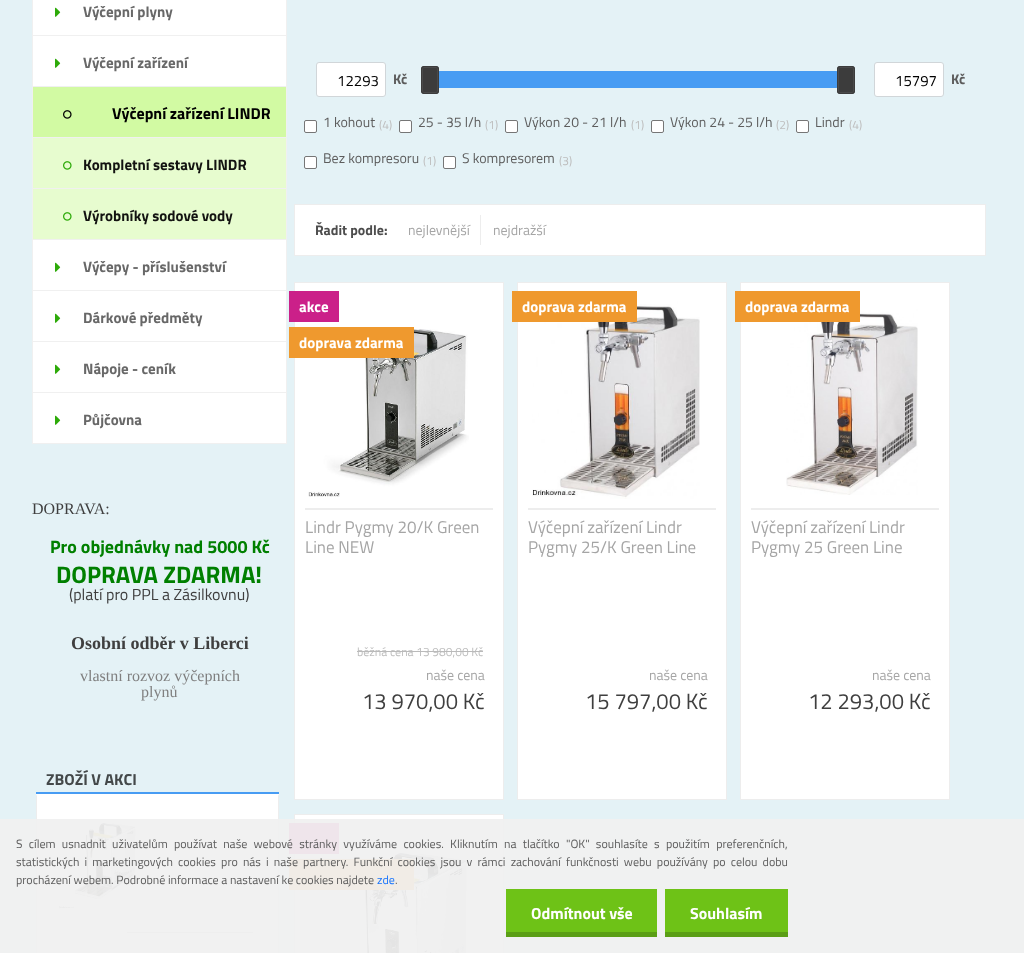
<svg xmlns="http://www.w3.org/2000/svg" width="1024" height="953">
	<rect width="100%" height="100%" fill="#E4F2F6" />
	<rect x="33" y="0" width="253" height="35" fill="#FFFFFF" />
	<rect x="286" y="0" width="1" height="444" fill="#F0F0F0" />
	<rect x="32" y="35" width="255" height="1" fill="#F0F0F0" />
	<rect x="32" y="0" width="1" height="36" fill="#F0F0F0" />
	<image x="55" y="7" width="6" height="10" href="assets/img1.png" />
	<text x="83" y="17" font-family="Titillium Web" font-size="15" font-weight="700" fill="#686868">Výčepní plyny</text>
	<rect x="33" y="36" width="253" height="50" fill="#FFFFFF" />
	<rect x="32" y="86" width="255" height="1" fill="#F0F0F0" />
	<rect x="32" y="36" width="1" height="51" fill="#F0F0F0" />
	<image x="55" y="58" width="6" height="10" href="assets/img1.png" />
	<text x="83" y="68" font-family="Titillium Web" font-size="15" font-weight="700" fill="#686868">Výčepní zařízení</text>
	<rect x="33" y="87" width="253" height="50" fill="#D2FAA3" />
	<rect x="32" y="137" width="255" height="1" fill="#F0F0F0" />
	<rect x="32" y="87" width="1" height="51" fill="#F0F0F0" />
	<image x="63" y="110" width="9" height="9" href="assets/img2.png" />
	<text x="112" y="119" font-family="Titillium Web" font-size="16" font-weight="700" fill="#000000">Výčepní zařízení LINDR</text>
	<rect x="33" y="138" width="253" height="50" fill="#E7FCCF" />
	<rect x="32" y="188" width="255" height="1" fill="#F0F0F0" />
	<rect x="32" y="138" width="1" height="51" fill="#F0F0F0" />
	<image x="63" y="161" width="9" height="9" href="assets/img3.png" />
	<text x="83" y="170" font-family="Titillium Web" font-size="15" font-weight="700" fill="#131311">Kompletní sestavy LINDR</text>
	<rect x="33" y="189" width="253" height="50" fill="#E7FCCF" />
	<rect x="32" y="239" width="255" height="1" fill="#F0F0F0" />
	<rect x="32" y="189" width="1" height="51" fill="#F0F0F0" />
	<image x="63" y="212" width="9" height="9" href="assets/img3.png" />
	<text x="83" y="221" font-family="Titillium Web" font-size="15" font-weight="700" fill="#131311">Výrobníky sodové vody</text>
	<rect x="33" y="240" width="253" height="50" fill="#FFFFFF" />
	<rect x="32" y="290" width="255" height="1" fill="#F0F0F0" />
	<rect x="32" y="240" width="1" height="51" fill="#F0F0F0" />
	<image x="55" y="262" width="6" height="10" href="assets/img1.png" />
	<text x="83" y="272" font-family="Titillium Web" font-size="15" font-weight="700" fill="#686868">Výčepy - příslušenství</text>
	<rect x="33" y="291" width="253" height="50" fill="#FFFFFF" />
	<rect x="32" y="341" width="255" height="1" fill="#F0F0F0" />
	<rect x="32" y="291" width="1" height="51" fill="#F0F0F0" />
	<image x="55" y="313" width="6" height="10" href="assets/img1.png" />
	<text x="83" y="323" font-family="Titillium Web" font-size="15" font-weight="700" fill="#686868">Dárkové předměty</text>
	<rect x="33" y="342" width="253" height="50" fill="#FFFFFF" />
	<rect x="32" y="392" width="255" height="1" fill="#F0F0F0" />
	<rect x="32" y="342" width="1" height="51" fill="#F0F0F0" />
	<image x="55" y="364" width="6" height="10" href="assets/img1.png" />
	<text x="83" y="374" font-family="Titillium Web" font-size="15" font-weight="700" fill="#686868">Nápoje - ceník</text>
	<rect x="33" y="393" width="253" height="50" fill="#FFFFFF" />
	<rect x="32" y="443" width="255" height="1" fill="#F0F0F0" />
	<rect x="32" y="393" width="1" height="51" fill="#F0F0F0" />
	<image x="55" y="415" width="6" height="10" href="assets/img1.png" />
	<text x="83" y="425" font-family="Titillium Web" font-size="15" font-weight="700" fill="#686868">Půjčovna</text>
	<text x="32" y="514" font-family="Liberation Serif" font-size="16" fill="#3F3F3F">DOPRAVA:</text>
	<text x="50" y="553" font-family="Titillium Web" font-size="18" font-weight="700" fill="#008000">Pro objednávky nad 5000 Kč</text>
	<text x="56" y="583" font-family="Titillium Web" font-size="24" font-weight="700" fill="#008000">DOPRAVA ZDARMA!</text>
	<text x="69" y="600" font-family="Titillium Web" font-size="16" fill="#3F3F3F">(platí pro PPL a Zásilkovnu)</text>
	<text x="71" y="649" font-family="Liberation Serif" font-size="18" font-weight="700" fill="#3F3F3F">Osobní odběr v Liberci</text>
	<g font-family="Liberation Serif" font-size="16" fill="#808080">
		<text x="80" y="681">vlastní rozvoz výčepních</text>
		<text x="141" y="697">plynů</text>
	</g>
	<rect x="316.5" y="62.5" width="69" height="34" rx="2.5" fill="#FFFFFF" stroke="#D1D6D9" />
	<text x="337" y="86" font-family="Titillium Web" font-size="15" fill="#000000">12293</text>
	<text x="393" y="84" font-family="Titillium Web" font-size="14" font-weight="700" fill="#5D5D5D">Kč</text>
	<rect x="436.5" y="71.5" width="401" height="16" rx="1.5" fill="none" stroke="#D1D6D9" />
	<rect x="436.5" y="71.5" width="401" height="16" rx="1.5" fill="#479CF3" stroke="#479CF3" />
	<rect x="421" y="66" width="18" height="28" rx="3" fill="#3C3C3C" />
	<rect x="422.5" y="67.5" width="15" height="25" rx="1.5" fill="none" stroke="#4A4A4A" />
	<rect x="421.5" y="66.5" width="17" height="27" rx="2.5" fill="none" stroke="#3C3C3C" />
	<rect x="837" y="66" width="18" height="28" rx="3" fill="#3C3C3C" />
	<rect x="838.5" y="67.5" width="15" height="25" rx="1.5" fill="none" stroke="#4A4A4A" />
	<rect x="837.5" y="66.5" width="17" height="27" rx="2.5" fill="none" stroke="#3C3C3C" />
	<rect x="874.5" y="62.5" width="69" height="34" rx="2.5" fill="#FFFFFF" stroke="#D1D6D9" />
	<text x="895" y="86" font-family="Titillium Web" font-size="15" fill="#000000">15797</text>
	<text x="951" y="84" font-family="Titillium Web" font-size="14" font-weight="700" fill="#5D5D5D">Kč</text>
	<rect x="304.5" y="120.5" width="12" height="12" rx="1.5" fill="#FFFFFF" stroke="#767676" />
	<text x="323" y="127" font-family="Titillium Web" font-size="14" fill="#5D5D5D">1 kohout</text>
	<text x="379" y="129" font-family="Titillium Web" font-size="12" fill="#BEBEBE">(4)</text>
	<rect x="399.5" y="120.5" width="12" height="12" rx="1.5" fill="#FFFFFF" stroke="#767676" />
	<text x="418" y="127" font-family="Titillium Web" font-size="14" fill="#5D5D5D">25 - 35 l/h</text>
	<text x="485" y="129" font-family="Titillium Web" font-size="12" fill="#BEBEBE">(1)</text>
	<rect x="505.5" y="120.5" width="12" height="12" rx="1.5" fill="#FFFFFF" stroke="#767676" />
	<text x="524" y="127" font-family="Titillium Web" font-size="14" fill="#5D5D5D">Výkon 20 - 21 l/h</text>
	<text x="631" y="129" font-family="Titillium Web" font-size="12" fill="#BEBEBE">(1)</text>
	<rect x="651.5" y="120.5" width="12" height="12" rx="1.5" fill="#FFFFFF" stroke="#767676" />
	<text x="670" y="127" font-family="Titillium Web" font-size="14" fill="#5D5D5D">Výkon 24 - 25 l/h</text>
	<text x="776" y="129" font-family="Titillium Web" font-size="12" fill="#BEBEBE">(2)</text>
	<rect x="796.5" y="120.5" width="12" height="12" rx="1.5" fill="#FFFFFF" stroke="#767676" />
	<text x="815" y="127" font-family="Titillium Web" font-size="14" fill="#5D5D5D">Lindr</text>
	<text x="849" y="129" font-family="Titillium Web" font-size="12" fill="#BEBEBE">(4)</text>
	<rect x="304.5" y="156.5" width="12" height="12" rx="1.5" fill="#FFFFFF" stroke="#767676" />
	<text x="323" y="163" font-family="Titillium Web" font-size="14" fill="#5D5D5D">Bez kompresoru</text>
	<text x="423" y="165" font-family="Titillium Web" font-size="12" fill="#BEBEBE">(1)</text>
	<rect x="443.5" y="156.5" width="12" height="12" rx="1.5" fill="#FFFFFF" stroke="#767676" />
	<text x="462" y="163" font-family="Titillium Web" font-size="14" fill="#5D5D5D">S kompresorem</text>
	<text x="559" y="165" font-family="Titillium Web" font-size="12" fill="#BEBEBE">(3)</text>
	<rect x="294.5" y="204.5" width="691" height="51" fill="#FFFFFF" stroke="#EDEDED" />
	<text x="315" y="235" font-family="Titillium Web" font-size="14" font-weight="700" fill="#4D4D4D">Řadit podle:</text>
	<rect x="480" y="215" width="1" height="30" fill="#EDEDED" />
	<g font-family="Titillium Web" font-size="14" fill="#A5A5A5">
		<text x="408" y="235">nejlevnější</text>
		<text x="493" y="235">nejdražší</text>
	</g>
	<rect x="294.5" y="282.5" width="209" height="517" fill="#FFFFFF" stroke="#EDEDED" />
	<rect x="289" y="291" width="50" height="31" fill="#CB2089" />
	<text x="299" y="312" font-family="Titillium Web" font-size="15" font-weight="700" fill="#FFFFFF">akce</text>
	<image x="308" y="327" width="161" height="170" href="assets/img4.png" />
	<rect x="289" y="327" width="125" height="31" fill="#EF992E" />
	<text x="299" y="348" font-family="Titillium Web" font-size="15" font-weight="700" fill="#FFFFFF">doprava zdarma</text>
	<rect x="305" y="508" width="188" height="2" fill="#EDEDED" />
	<g font-family="Titillium Web" font-size="17" fill="#A5A5A5">
		<text x="305" y="533">Lindr Pygmy 20/K Green</text>
		<text x="305" y="553">Line NEW</text>
	</g>
	<text x="357" y="656" font-family="Titillium Web" font-size="12" fill="#BEBEBE">běžná cena 13 980,00 Kč</text>
	<rect x="357" y="651" width="126" height="1" fill="#BABABA" />
	<text x="426" y="680" font-family="Titillium Web" font-size="14" fill="#A5A5A5">naše cena</text>
	<text x="362" y="709" font-family="Titillium Web" font-size="22" fill="#3F3F3F">13 970,00 Kč</text>
	<rect x="517.5" y="282.5" width="209" height="517" fill="#FFFFFF" stroke="#EDEDED" />
	<image x="532" y="301" width="168" height="198" href="assets/img5.png" />
	<rect x="512" y="291" width="125" height="31" fill="#EF992E" />
	<text x="522" y="312" font-family="Titillium Web" font-size="15" font-weight="700" fill="#FFFFFF">doprava zdarma</text>
	<rect x="528" y="508" width="188" height="2" fill="#EDEDED" />
	<g font-family="Titillium Web" font-size="17" fill="#A5A5A5">
		<text x="528" y="533">Výčepní zařízení Lindr</text>
		<text x="528" y="553">Pygmy 25/K Green Line</text>
	</g>
	<text x="649" y="680" font-family="Titillium Web" font-size="14" fill="#A5A5A5">naše cena</text>
	<text x="585" y="709" font-family="Titillium Web" font-size="22" fill="#3F3F3F">15 797,00 Kč</text>
	<rect x="740.5" y="282.5" width="209" height="517" fill="#FFFFFF" stroke="#EDEDED" />
	<image x="786" y="309" width="132" height="186" href="assets/img6.png" />
	<rect x="735" y="291" width="125" height="31" fill="#EF992E" />
	<text x="745" y="312" font-family="Titillium Web" font-size="15" font-weight="700" fill="#FFFFFF">doprava zdarma</text>
	<rect x="751" y="508" width="188" height="2" fill="#EDEDED" />
	<g font-family="Titillium Web" font-size="17" fill="#A5A5A5">
		<text x="751" y="533">Výčepní zařízení Lindr</text>
		<text x="751" y="553">Pygmy 25 Green Line</text>
	</g>
	<text x="872" y="680" font-family="Titillium Web" font-size="14" fill="#A5A5A5">naše cena</text>
	<text x="808" y="709" font-family="Titillium Web" font-size="22" fill="#3F3F3F">12 293,00 Kč</text>
	<rect x="294.5" y="814.5" width="209" height="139" fill="#FFFFFF" stroke="#EDEDED" />
	<image x="364" y="852" width="103" height="101" href="assets/img7.png" />
	<rect x="289" y="823" width="50" height="31" fill="#CB2089" />
	<rect x="289" y="859" width="125" height="31" fill="#EF992E" />
	<text x="46" y="785" font-family="Titillium Web" font-size="16" font-weight="700" fill="#44494A">ZBOŽÍ V AKCI</text>
	<rect x="36" y="792" width="243" height="2" fill="#479CF3" />
	<rect x="36" y="794" width="243" height="159" fill="#FFFFFF" />
	<path d="M279 794V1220L278 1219V796Z" fill="#EDEDED" />
	<path d="M36 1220V794L37 796V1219Z" fill="#EDEDED" />
	<image x="58" y="822" width="78" height="87" href="assets/img8.png" />
	<rect x="127" y="932" width="126" height="1" fill="#BABABA" />
	<rect x="0" y="819" width="1024" height="134" fill="#F0F0F0" fill-opacity="0.95" />
	<g font-family="Titillium Web" font-size="12" fill="#5D5D5D">
		<text x="16" y="848" word-spacing="3.6">S cílem usnadnit uživatelům používat naše webové stránky využíváme cookies. Kliknutím na tlačítko "OK" souhlasíte s použitím preferenčních,</text>
		<text x="16" y="866" word-spacing="2.5">statistických i marketingových cookies pro nás i naše partnery. Funkční cookies jsou v rámci zachování funkčnosti webu používány po celou dobu</text>
		<text x="16" y="884">procházení webem. Podrobné informace a nastavení ke cookies najdete</text>
	</g>
	<text x="377" y="884" font-family="Titillium Web" font-size="12" fill="#1874FC">zde</text>
	<text x="395" y="884" font-family="Titillium Web" font-size="12" fill="#5D5853">.</text>
	<rect x="506" y="889" width="151" height="43" fill="#6EC217" />
	<rect x="506" y="932" width="151" height="5" fill="#5A9E15" />
	<text x="531" y="919" font-family="Titillium Web" font-size="16" font-weight="700" fill="#FFFFFF">Odmítnout vše</text>
	<rect x="665" y="889" width="123" height="43" fill="#6EC217" />
	<rect x="665" y="932" width="123" height="5" fill="#5A9E15" />
	<text x="690" y="919" font-family="Titillium Web" font-size="16" font-weight="700" fill="#FFFFFF">Souhlasím</text>
</svg>
